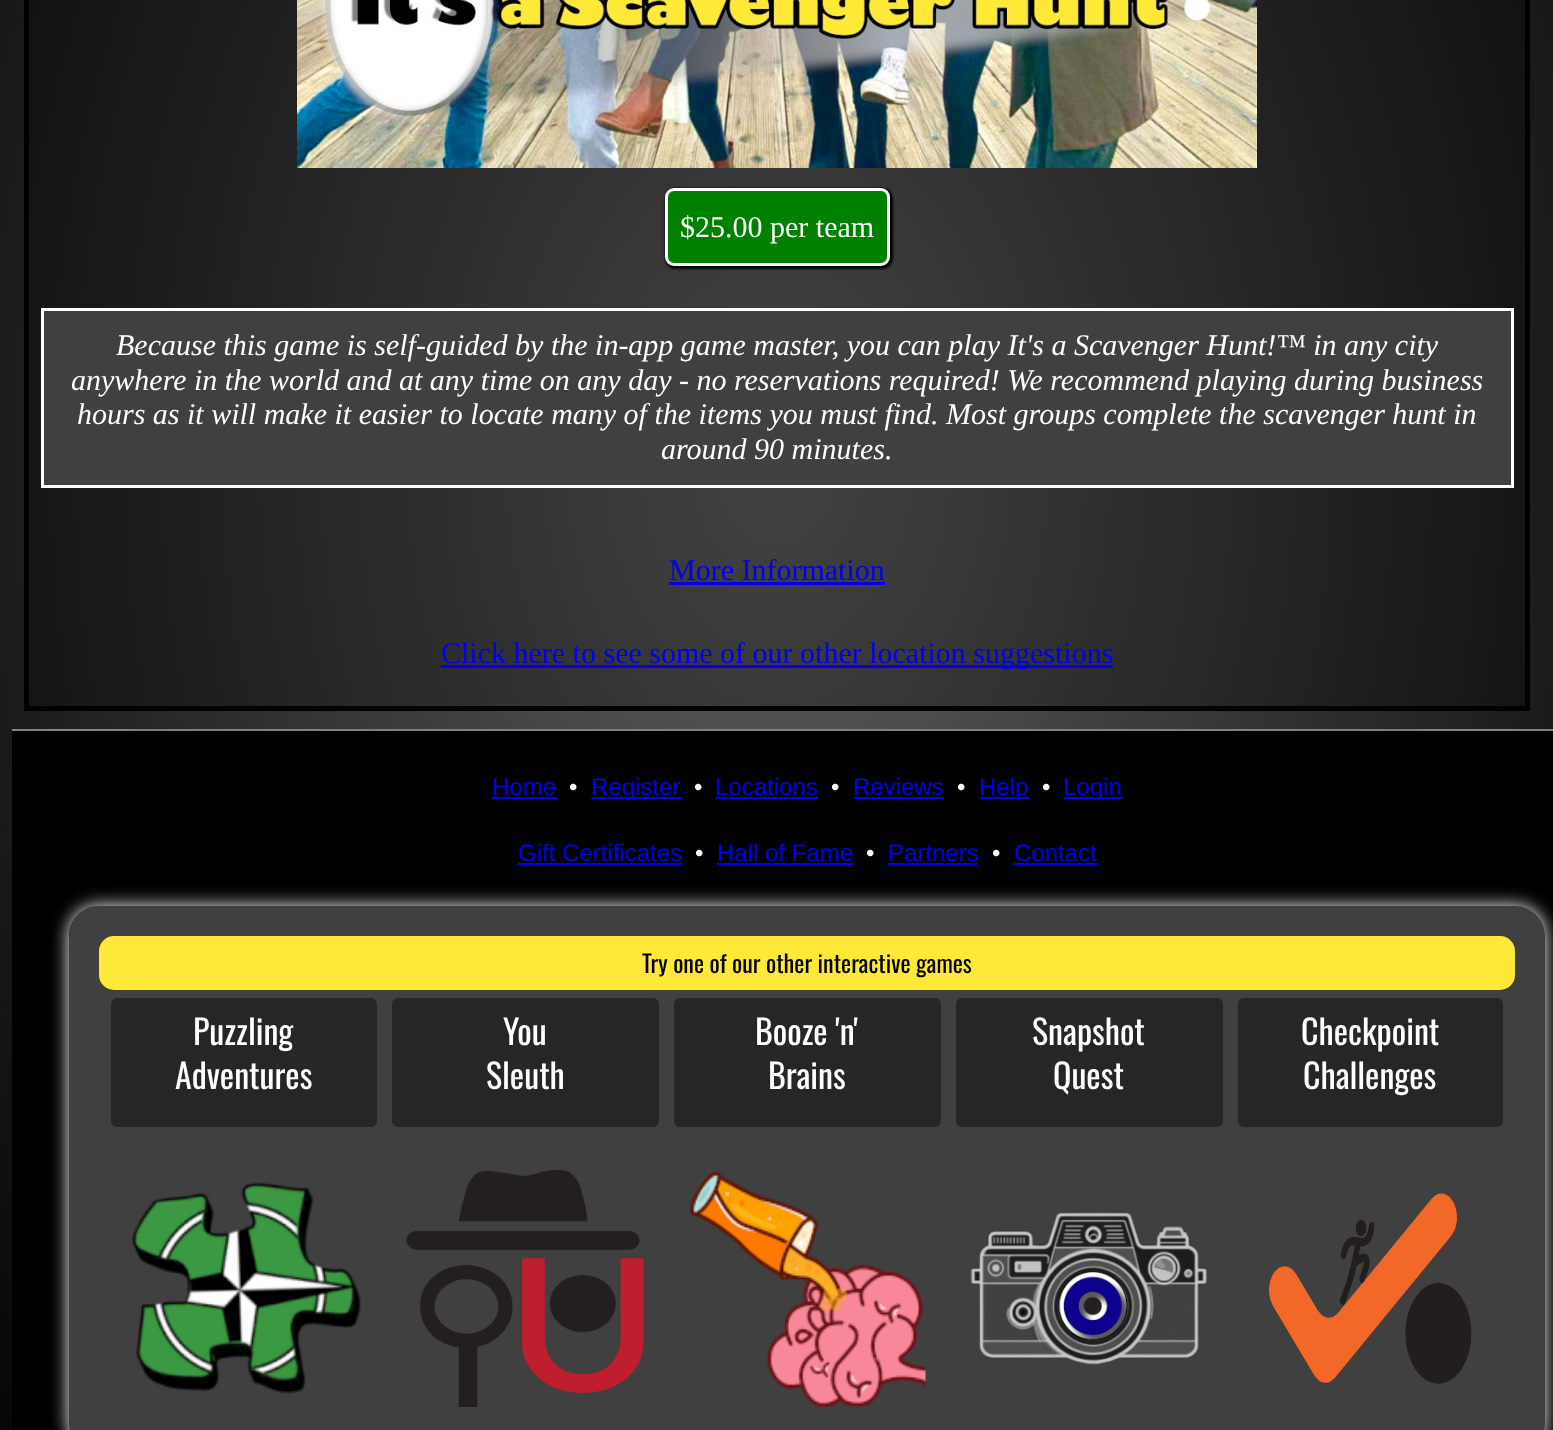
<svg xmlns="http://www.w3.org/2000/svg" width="1553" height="1430">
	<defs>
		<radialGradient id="g1" gradientUnits="userSpaceOnUse" cx="0" cy="0" r="1" gradientTransform="matrix(1099 0 0 1585 777 455)"><stop offset="0" stop-color="#606060" /><stop offset="1" stop-color="#000000" /></radialGradient>
		<radialGradient id="g2" gradientUnits="userSpaceOnUse" cx="0" cy="0" r="1" gradientTransform="matrix(1099 0 0 1585 777 455)"><stop offset="0" stop-color="#434343" /><stop offset="1" stop-color="#000000" /></radialGradient>
		<clipPath id="clip1"><path d="M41 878H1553V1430H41ZM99 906H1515C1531.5 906 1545 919.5 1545 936V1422C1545 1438.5 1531.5 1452 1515 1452H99C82.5 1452 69 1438.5 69 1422V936C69 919.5 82.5 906 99 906Z" clip-rule="evenodd" /></clipPath>
	</defs>
	<rect width="100%" height="100%" fill="#FFFFFF" />
	<rect x="0" y="0" width="1553" height="1430" fill="url(#g1)" />
	<rect x="29" y="0" width="1496" height="706" fill="url(#g2)" />
	<rect x="26.5" y="-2.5" width="1501" height="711" fill="none" stroke="#000000" stroke-width="5" />
	<image x="297" y="0" width="960" height="168" href="assets/img1.png" />
	<rect x="665" y="188" width="228" height="81" rx="11" fill="#000000" filter="blur(1px)" />
	<rect x="666.5" y="189.5" width="222" height="75" rx="7.5" fill="#008000" stroke="#FFFFFF" stroke-width="3" />
	<text x="680" y="237" font-family="Liberation Serif" font-size="30" fill="#FFFFFF">$25.00 per team</text>
	<rect x="42.5" y="309.5" width="1470" height="177" fill="#404040" stroke="#FFFFFF" stroke-width="3" />
	<g font-family="Liberation Serif" font-size="30" font-style="italic" fill="#FFFFFF">
		<text x="116" y="355">Because this game is self-guided by the in-app game master, you can play It's a Scavenger Hunt!™ in any city</text>
		<text x="71" y="390">anywhere in the world and at any time on any day - no reservations required! We recommend playing during business</text>
		<text x="77" y="424">hours as it will make it easier to locate many of the items you must find. Most groups complete the scavenger hunt in</text>
		<text x="661" y="459">around 90 minutes.</text>
	</g>
	<text x="669" y="580" font-family="Liberation Serif" font-size="30" fill="#0000EE">More Information</text>
	<rect x="669" y="582" width="216" height="3" fill="#0000EE" />
	<rect x="441" y="665" width="672" height="3" fill="#0000EE" />
	<text x="441" y="663" font-family="Liberation Serif" font-size="30" fill="#0000EE">Click here to see some of our other location suggestions</text>
	<rect x="12" y="731" width="1541" height="699" fill="#000000" />
	<rect x="12" y="729" width="1541" height="2" fill="#808080" />
	<text x="492" y="795" font-family="Liberation Sans" font-size="24" fill="#0000EE">Home</text>
	<rect x="492" y="797" width="65" height="2" fill="#0000EE" />
	<text x="569" y="795" font-family="Liberation Sans" font-size="24" fill="#FFFFFF">•</text>
	<rect x="591" y="797" width="90" height="2" fill="#0000EE" />
	<text x="591" y="795" font-family="Liberation Sans" font-size="24" fill="#0000EE">Register</text>
	<text x="694" y="795" font-family="Liberation Sans" font-size="24" fill="#FFFFFF">•</text>
	<text x="715" y="795" font-family="Liberation Sans" font-size="24" fill="#0000EE">Locations</text>
	<rect x="716" y="797" width="102" height="2" fill="#0000EE" />
	<text x="831" y="795" font-family="Liberation Sans" font-size="24" fill="#FFFFFF">•</text>
	<text x="853" y="795" font-family="Liberation Sans" font-size="24" fill="#0000EE">Reviews</text>
	<rect x="854" y="797" width="90" height="2" fill="#0000EE" />
	<text x="957" y="795" font-family="Liberation Sans" font-size="24" fill="#FFFFFF">•</text>
	<rect x="980" y="797" width="49" height="2" fill="#0000EE" />
	<text x="979" y="795" font-family="Liberation Sans" font-size="24" fill="#0000EE">Help</text>
	<text x="1042" y="795" font-family="Liberation Sans" font-size="24" fill="#FFFFFF">•</text>
	<rect x="1064" y="797" width="58" height="2" fill="#0000EE" />
	<g font-family="Liberation Sans" font-size="24" fill="#0000EE">
		<text x="1063" y="795">Login</text>
		<text x="518" y="861">Gift Certificates</text>
	</g>
	<rect x="518" y="863" width="163" height="2" fill="#0000EE" />
	<text x="695" y="861" font-family="Liberation Sans" font-size="24" fill="#FFFFFF">•</text>
	<text x="717" y="861" font-family="Liberation Sans" font-size="24" fill="#0000EE">Hall of Fame</text>
	<rect x="717" y="863" width="137" height="2" fill="#0000EE" />
	<text x="866" y="861" font-family="Liberation Sans" font-size="24" fill="#FFFFFF">•</text>
	<text x="888" y="861" font-family="Liberation Sans" font-size="24" fill="#0000EE">Partners</text>
	<rect x="888" y="863" width="90" height="2" fill="#0000EE" />
	<text x="992" y="861" font-family="Liberation Sans" font-size="24" fill="#FFFFFF">•</text>
	<text x="1014" y="861" font-family="Liberation Sans" font-size="24" fill="#0000EE">Contact</text>
	<rect x="1014" y="863" width="83" height="2" fill="#0000EE" />
	<g clip-path="url(#clip1)">
		<rect x="69" y="906" width="1476" height="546" rx="30" fill="#FFFFFF" filter="blur(9px)" />
	</g>
	<rect x="69" y="906" width="1476" height="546" rx="30" fill="#FFFFFF" fill-opacity="0.25" />
	<rect x="99" y="936" width="1416" height="54" rx="15" fill="#FEE938" />
	<text x="642" y="973" font-family="Oswald" font-size="24" fill="#000000">Try one of our other interactive games</text>
	<rect x="111" y="998" width="266" height="129" rx="6" fill="#262626" />
	<g font-family="Oswald" font-size="34" fill="#FFFFFF">
		<text x="193" y="1045">Puzzling</text>
		<text x="175" y="1089">Adventures</text>
	</g>
	<image x="128" y="1182" width="233" height="212" href="assets/img2.png" />
	<rect x="392" y="998" width="267" height="129" rx="6" fill="#262626" />
	<g font-family="Oswald" font-size="34" fill="#FFFFFF">
		<text x="503" y="1045">You</text>
		<text x="486" y="1089">Sleuth</text>
	</g>
	<image x="406" y="1170" width="238" height="237" href="assets/img3.png" />
	<rect x="674" y="998" width="267" height="129" rx="6" fill="#262626" />
	<g font-family="Oswald" font-size="34" fill="#FFFFFF">
		<text x="755" y="1045">Booze 'n'</text>
		<text x="768" y="1089">Brains</text>
	</g>
	<image x="689" y="1170" width="237" height="237" href="assets/img4.png" />
	<rect x="956" y="998" width="267" height="129" rx="6" fill="#262626" />
	<g font-family="Oswald" font-size="34" fill="#FFFFFF">
		<text x="1032" y="1045">Snapshot</text>
		<text x="1053" y="1089">Quest</text>
	</g>
	<image x="970" y="1211" width="237" height="154" href="assets/img5.png" />
	<rect x="1238" y="998" width="265" height="129" rx="6" fill="#262626" />
	<g font-family="Oswald" font-size="34" fill="#FFFFFF">
		<text x="1301" y="1045">Checkpoint</text>
		<text x="1303" y="1089">Challenges</text>
	</g>
	<image x="1269" y="1193" width="203" height="191" href="assets/img6.png" />
</svg>
